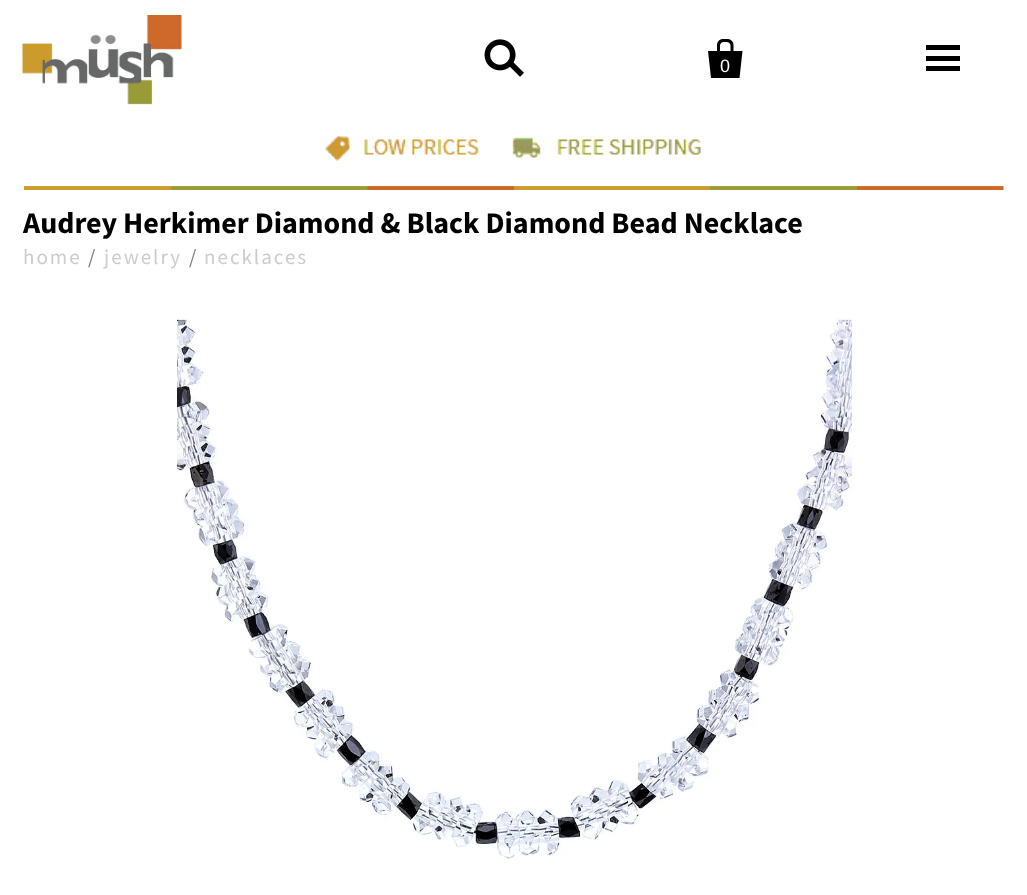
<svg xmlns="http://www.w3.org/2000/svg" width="1027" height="895">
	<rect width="100%" height="100%" fill="#FFFFFF" />
	<image x="22" y="15" width="160" height="90" href="assets/img1.png" />
	<image x="484" y="39" width="40" height="38" href="assets/img2.png" />
	<image x="708" y="39" width="35" height="39" href="assets/img3.png" />
	<text x="720" y="72" font-family="Liberation Sans" font-size="18" fill="#FFFFFF">0</text>
	<rect x="926" y="56" width="34" height="5" fill="#000000" />
	<rect x="926" y="45" width="34" height="5" fill="#000000" />
	<rect x="926" y="66" width="34" height="5" fill="#000000" />
	<image x="325" y="136" width="376" height="25" href="assets/img4.png" />
	<image x="24" y="186" width="980" height="4" href="assets/img5.png" />
	<text x="23" y="233" font-family="Source Sans Pro" font-size="30" font-weight="700" fill="#000000">Audrey Herkimer Diamond &amp; Black Diamond Bead Necklace</text>
	<text x="23" y="264" font-family="Source Sans Pro" font-size="21" letter-spacing="2" fill="#CCCCCC">home</text>
	<text x="88" y="264" font-family="Source Sans Pro" font-size="21" letter-spacing="2" fill="#7F7F7F">/</text>
	<text x="104" y="264" font-family="Source Sans Pro" font-size="21" letter-spacing="2" fill="#CCCCCC">jewelry</text>
	<text x="189" y="264" font-family="Source Sans Pro" font-size="21" letter-spacing="2" fill="#7F7F7F">/</text>
	<text x="204" y="264" font-family="Source Sans Pro" font-size="21" letter-spacing="2" fill="#CCCCCC">necklaces</text>
	<image x="177" y="318" width="675" height="542" href="assets/img6.png" />
</svg>
